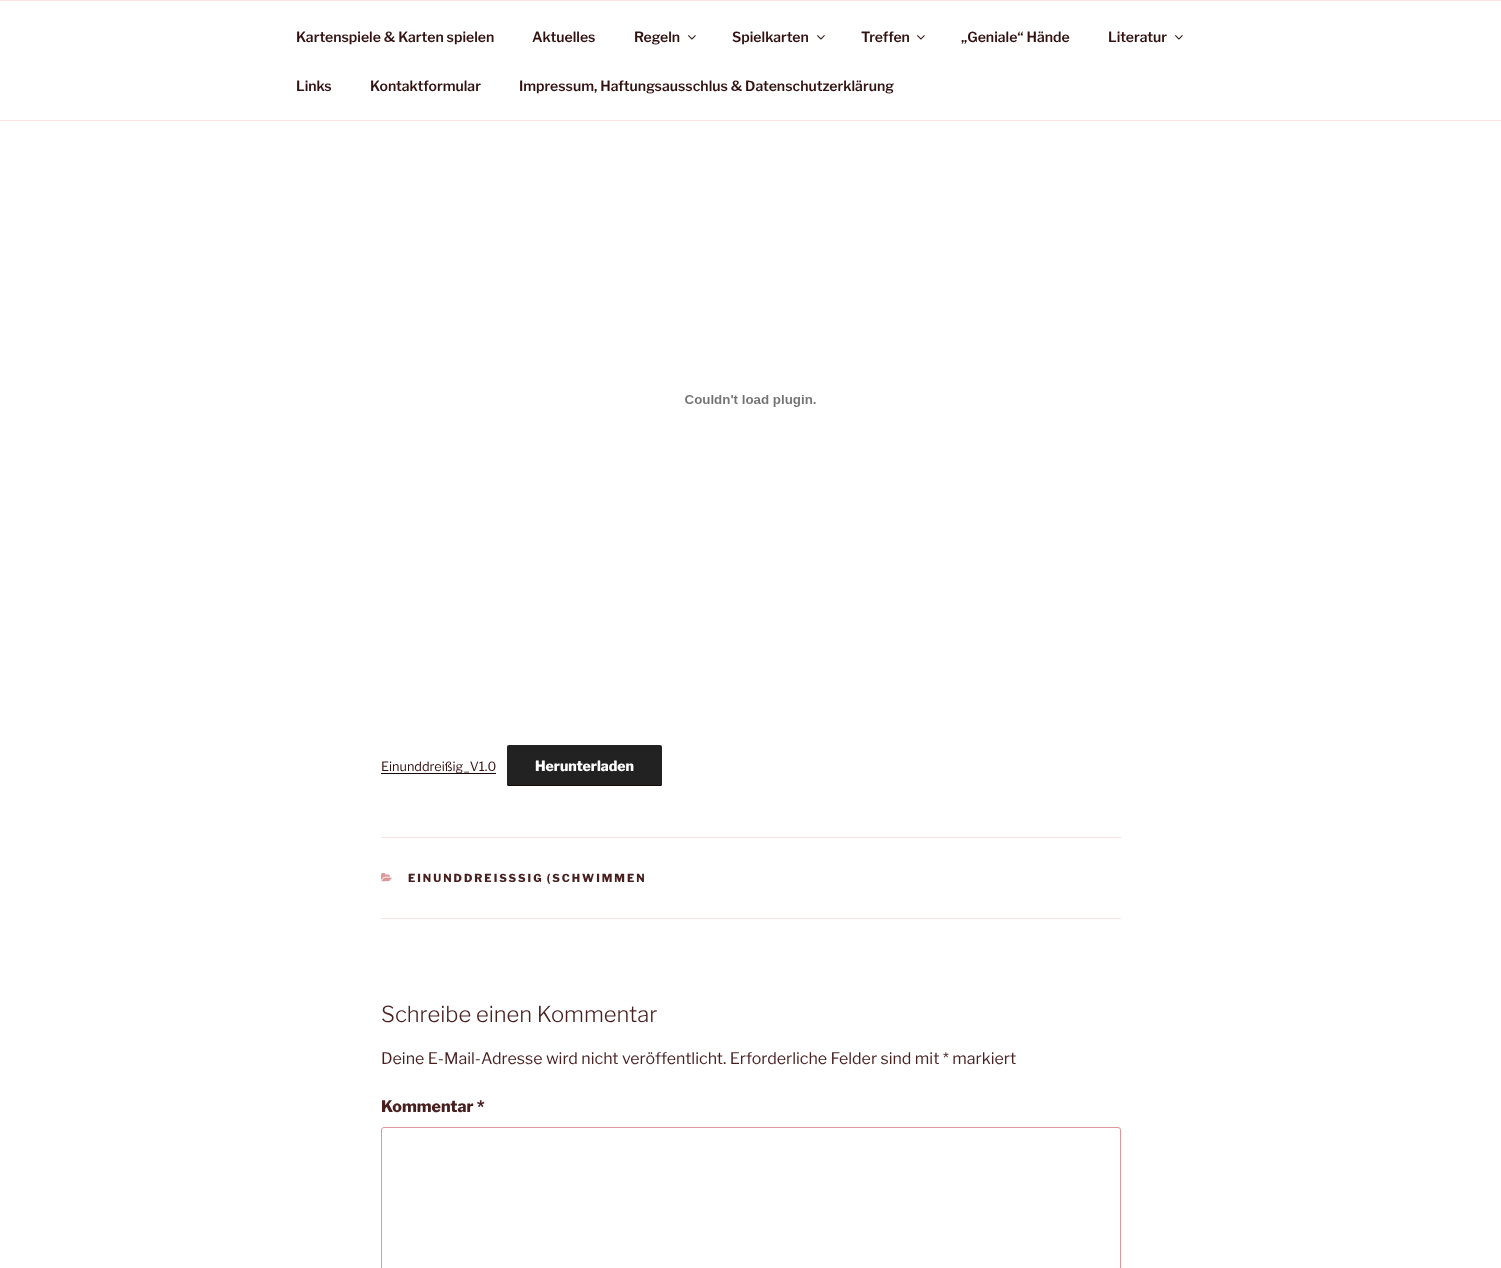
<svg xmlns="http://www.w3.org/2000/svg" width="1501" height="1268">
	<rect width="100%" height="100%" fill="#FFFFFF" />
	<rect x="0" y="0" width="1501" height="1" fill="#F6E4E4" />
	<rect x="0" y="120" width="1501" height="1" fill="#F6E4E4" />
	<g font-family="'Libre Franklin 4'" font-size="14" font-weight="100" fill="#321111">
		<text x="296" y="42">Kartenspiele &amp; Karten spielen</text>
		<text x="532" y="42">Aktuelles</text>
		<text x="634" y="42">Regeln</text>
	</g>
	<image x="688" y="35" width="8" height="5" href="assets/img1.png" />
	<text x="732" y="42" font-family="'Libre Franklin 4'" font-size="14" font-weight="100" fill="#321111">Spielkarten</text>
	<image x="817" y="35" width="8" height="5" href="assets/img1.png" />
	<text x="861" y="42" font-family="'Libre Franklin 4'" font-size="14" font-weight="100" fill="#321111">Treffen</text>
	<image x="917" y="35" width="8" height="5" href="assets/img1.png" />
	<g font-family="'Libre Franklin 4'" font-size="14" font-weight="100" fill="#321111">
		<text x="961" y="42">„Geniale“ Hände</text>
		<text x="1108" y="42">Literatur</text>
	</g>
	<image x="1175" y="35" width="8" height="5" href="assets/img1.png" />
	<g font-family="'Libre Franklin 4'" font-size="14" font-weight="100" fill="#321111">
		<text x="296" y="91">Links</text>
		<text x="370" y="91">Kontaktformular</text>
		<text x="519" y="91">Impressum, Haftungsausschlus &amp; Datenschutzerklärung</text>
	</g>
	<image x="685" y="395" width="131" height="12" href="assets/img2.png" />
	<rect x="381" y="773" width="115" height="1" fill="#170808" />
	<text x="381" y="771" font-family="Libre Franklin" font-size="12.75" font-weight="100" fill="#321111">Einunddreißig_V1.0</text>
	<rect x="507" y="745" width="155" height="41" rx="2" fill="#222222" />
	<path d="M507 783C507 784 507 786 509 786H661C662 785 662 784 662 783C662 784 661 785 660 785H509C508 785 507 784 507 783Z" fill="#170808" />
	<text x="535" y="771" font-family="'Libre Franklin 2'" font-size="14" font-weight="100" fill="#FFFFFF">Herunterladen</text>
	<rect x="381" y="837" width="740" height="1" fill="#F6E4E4" />
	<rect x="381" y="918" width="740" height="1" fill="#F6E4E4" />
	<image x="381" y="873" width="11" height="9" href="assets/img3.png" />
	<g font-family="'Libre Franklin 2'" font-size="11" font-weight="100" letter-spacing="2" fill="#471F1F">
		<text x="408" y="882">EINUNDDREISS</text>
		<text x="518" y="882" word-spacing="-1">SIG (SCHWIMMEN</text>
	</g>
	<text x="381" y="1022" font-family="'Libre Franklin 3'" font-size="22" font-weight="100" fill="#471F1F">Schreibe einen Kommentar</text>
	<text x="381" y="1064" font-family="Libre Franklin" font-size="16" font-weight="100" fill="#471F1F">Deine E-Mail-Adresse wird nicht veröffentlicht. Erforderliche Felder sind mit * markiert</text>
	<text x="381" y="1112" font-family="'Libre Franklin 2'" font-size="16" font-weight="100" fill="#471F1F">Kommentar *</text>
	<rect x="381.5" y="1127.5" width="739" height="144" rx="2.5" fill="none" stroke="#DD9898" />
</svg>
